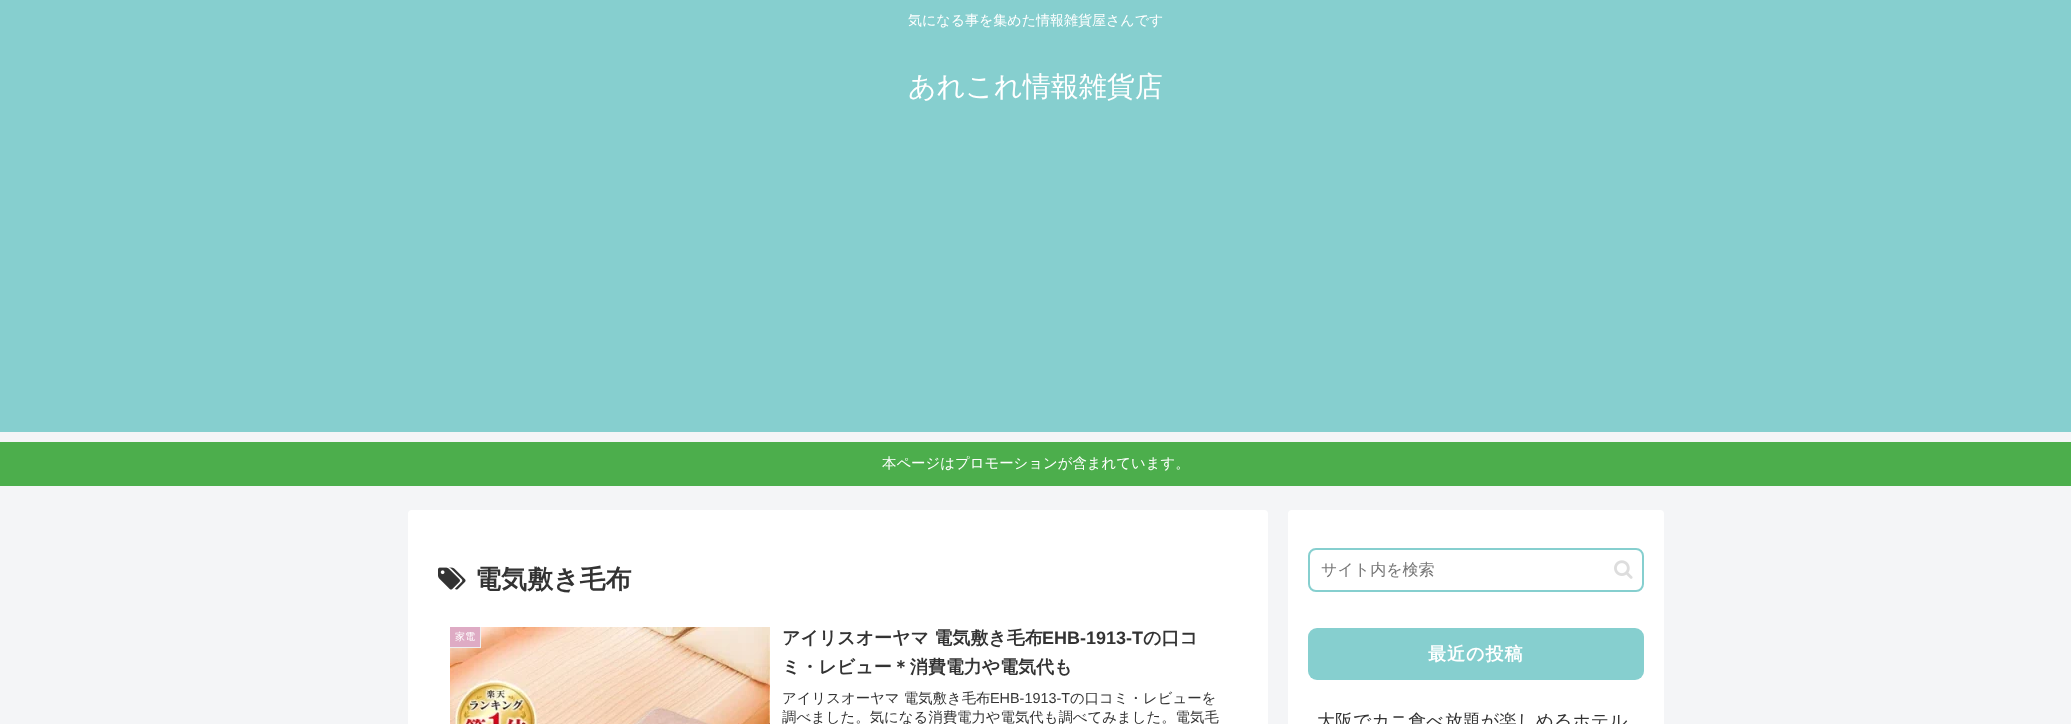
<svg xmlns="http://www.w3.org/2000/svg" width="2071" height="724">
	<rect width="100%" height="100%" fill="#F4F5F7" />
	<rect x="0" y="0" width="2071" height="432" fill="#86CFCF" />
	<text x="908" y="25" font-family="WenQuanYi Zen Hei" font-size="14" font-weight="500" fill="#FFFFFF">気になる事を集めた情報雑貨屋さんです</text>
	<text x="908" y="96" font-family="WenQuanYi Zen Hei" font-size="28" font-weight="500" fill="#FFFFFF">あれこれ情報雑貨店</text>
	<rect x="0" y="442" width="2071" height="44" fill="#4CAE4C" />
	<text x="882" y="468" font-family="WenQuanYi Zen Hei" font-size="14.4" font-weight="500" fill="#FFFFFF">本ページはプロモーションが含まれています。</text>
	<rect x="408" y="510" width="860" height="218" rx="4" fill="#FFFFFF" />
	<image x="438" y="567" width="28" height="23" href="assets/img1.png" />
	<text x="475" y="588" font-family="WenQuanYi Zen Hei" font-size="26" font-weight="700" fill="#333333">電気敷き毛布</text>
	<image x="450" y="627" width="320" height="97" href="assets/img2.png" />
	<rect x="450" y="627" width="30" height="20" fill="#DEABC4" />
	<rect x="480" y="627" width="1" height="21" fill="#EEEEEE" />
	<rect x="450" y="647" width="31" height="1" fill="#EEEEEE" />
	<text x="455" y="640" font-family="WenQuanYi Zen Hei" font-size="10" font-weight="500" fill="#FFFFFF">家電</text>
	<text x="782" y="644" font-family="WenQuanYi Zen Hei" font-size="18" font-weight="700" fill="#333333">アイリスオーヤマ 電気敷き毛布</text>
	<text x="1042" y="644" font-family="Liberation Sans" font-size="18" font-weight="700" fill="#333333">EHB-1913-T</text>
	<g font-family="WenQuanYi Zen Hei" font-size="18" font-weight="700" fill="#333333">
		<text x="1143" y="644">の口コ</text>
		<text x="782" y="673">ミ・レビュー＊消費電力や電気代も</text>
	</g>
	<text x="782" y="703" font-family="WenQuanYi Zen Hei" font-size="14.4" font-weight="500" fill="#333333">アイリスオーヤマ 電気敷き毛布</text>
	<text x="990" y="703" font-family="Liberation Sans" font-size="14.4" fill="#333333">EHB-1913-T</text>
	<g font-family="WenQuanYi Zen Hei" font-size="14.4" font-weight="500" fill="#333333">
		<text x="1070" y="703">の口コミ・レビューを</text>
		<text x="782" y="722">調べました。気になる消費電力や電気代も調べてみました。電気毛</text>
	</g>
	<rect x="1288" y="510" width="376" height="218" rx="4" fill="#FFFFFF" />
	<rect x="1309" y="549" width="334" height="42" rx="7" fill="none" stroke="#86CFCF" stroke-width="2" />
	<text x="1321" y="575" font-family="WenQuanYi Zen Hei" font-size="16" font-weight="500" fill="#757575">サイト内を検索</text>
	<image x="1614" y="560" width="19" height="19" href="assets/img3.png" />
	<rect x="1308" y="628" width="336" height="52" rx="9" fill="#86CFCF" />
	<text x="1428" y="660" font-family="WenQuanYi Zen Hei" font-size="18" font-weight="700" letter-spacing="1" fill="#FFFFFF">最近の投稿</text>
	<text x="1317" y="727" font-family="WenQuanYi Zen Hei" font-size="18" font-weight="500" fill="#333333">大阪でカニ食べ放題が楽しめるホテル</text>
</svg>
